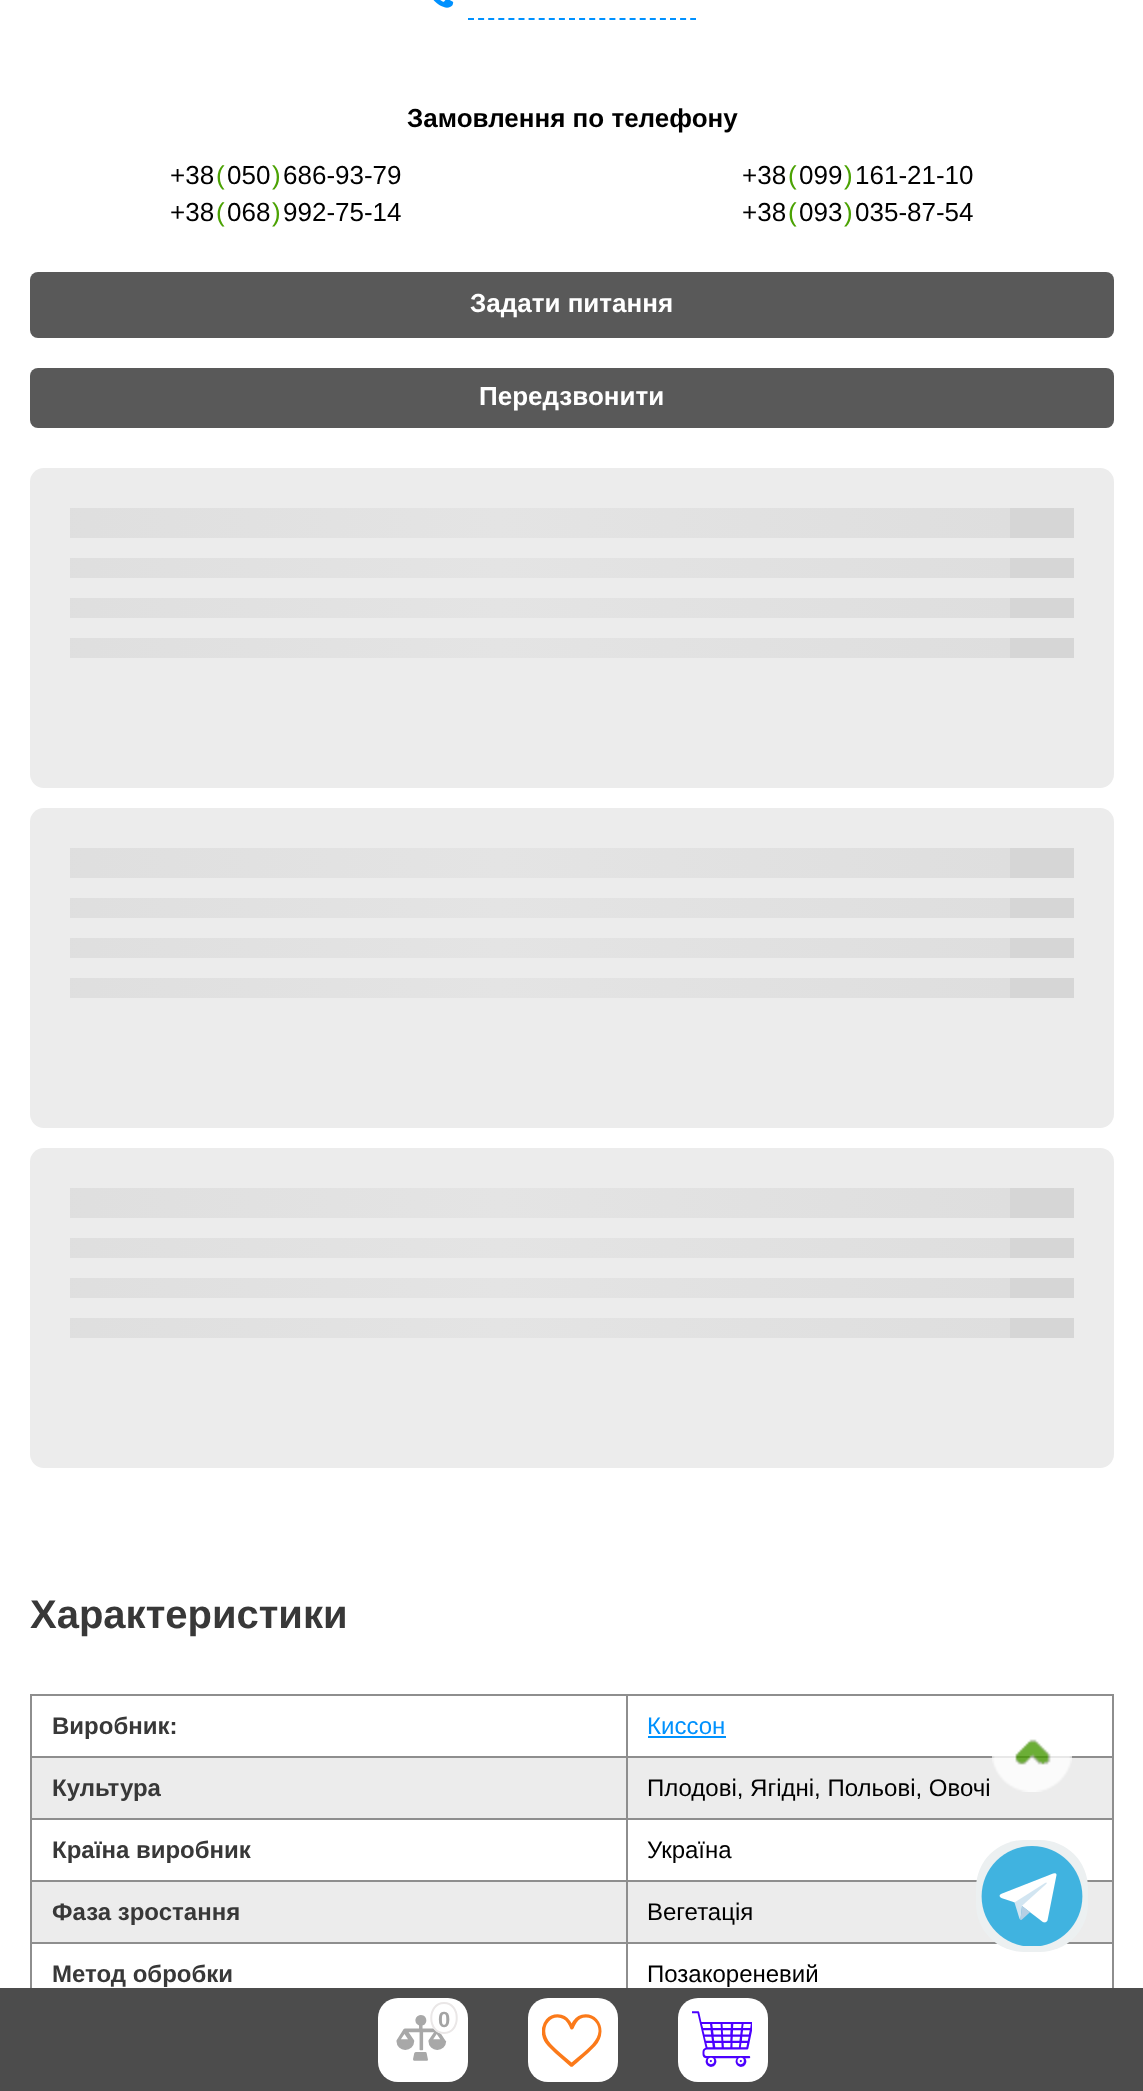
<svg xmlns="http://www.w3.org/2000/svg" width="1143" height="2091">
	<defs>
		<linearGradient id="g1" gradientUnits="userSpaceOnUse" x1="6" y1="523" x2="1010" y2="523"><stop offset="0" stop-color="#DEDEDE" /><stop offset="0.49" stop-color="#E4E4E4" /><stop offset="1" stop-color="#DEDEDE" /></linearGradient>
		<linearGradient id="g2" gradientUnits="userSpaceOnUse" x1="6" y1="568" x2="1010" y2="568"><stop offset="0" stop-color="#DEDEDE" /><stop offset="0.49" stop-color="#E4E4E4" /><stop offset="1" stop-color="#DEDEDE" /></linearGradient>
		<linearGradient id="g3" gradientUnits="userSpaceOnUse" x1="6" y1="608" x2="1010" y2="608"><stop offset="0" stop-color="#DEDEDE" /><stop offset="0.49" stop-color="#E4E4E4" /><stop offset="1" stop-color="#DEDEDE" /></linearGradient>
		<linearGradient id="g4" gradientUnits="userSpaceOnUse" x1="6" y1="648" x2="1010" y2="648"><stop offset="0" stop-color="#DEDEDE" /><stop offset="0.49" stop-color="#E4E4E4" /><stop offset="1" stop-color="#DEDEDE" /></linearGradient>
		<linearGradient id="g5" gradientUnits="userSpaceOnUse" x1="6" y1="863" x2="1010" y2="863"><stop offset="0" stop-color="#DEDEDE" /><stop offset="0.49" stop-color="#E4E4E4" /><stop offset="1" stop-color="#DEDEDE" /></linearGradient>
		<linearGradient id="g6" gradientUnits="userSpaceOnUse" x1="6" y1="908" x2="1010" y2="908"><stop offset="0" stop-color="#DEDEDE" /><stop offset="0.49" stop-color="#E4E4E4" /><stop offset="1" stop-color="#DEDEDE" /></linearGradient>
		<linearGradient id="g7" gradientUnits="userSpaceOnUse" x1="6" y1="948" x2="1010" y2="948"><stop offset="0" stop-color="#DEDEDE" /><stop offset="0.49" stop-color="#E4E4E4" /><stop offset="1" stop-color="#DEDEDE" /></linearGradient>
		<linearGradient id="g8" gradientUnits="userSpaceOnUse" x1="6" y1="988" x2="1010" y2="988"><stop offset="0" stop-color="#DEDEDE" /><stop offset="0.49" stop-color="#E4E4E4" /><stop offset="1" stop-color="#DEDEDE" /></linearGradient>
		<linearGradient id="g9" gradientUnits="userSpaceOnUse" x1="6" y1="1203" x2="1010" y2="1203"><stop offset="0" stop-color="#DEDEDE" /><stop offset="0.49" stop-color="#E4E4E4" /><stop offset="1" stop-color="#DEDEDE" /></linearGradient>
		<linearGradient id="g10" gradientUnits="userSpaceOnUse" x1="6" y1="1248" x2="1010" y2="1248"><stop offset="0" stop-color="#DEDEDE" /><stop offset="0.49" stop-color="#E4E4E4" /><stop offset="1" stop-color="#DEDEDE" /></linearGradient>
		<linearGradient id="g11" gradientUnits="userSpaceOnUse" x1="6" y1="1288" x2="1010" y2="1288"><stop offset="0" stop-color="#DEDEDE" /><stop offset="0.49" stop-color="#E4E4E4" /><stop offset="1" stop-color="#DEDEDE" /></linearGradient>
		<linearGradient id="g12" gradientUnits="userSpaceOnUse" x1="6" y1="1328" x2="1010" y2="1328"><stop offset="0" stop-color="#DEDEDE" /><stop offset="0.49" stop-color="#E4E4E4" /><stop offset="1" stop-color="#DEDEDE" /></linearGradient>
	</defs>
	<rect width="100%" height="100%" fill="#FFFFFF" />
	<path d="M468 19H696" fill="none" stroke="#0091FF" stroke-width="2" stroke-dasharray="6 4.1" />
	<image x="433" y="0" width="21" height="8" href="assets/img1.png" />
	<text x="407" y="127" font-family="Liberation Sans" font-size="26" font-weight="700" fill="#000000">Замовлення по телефону</text>
	<text x="170" y="184" font-family="Liberation Sans" font-size="26" fill="#000000">+38</text>
	<text x="216" y="184" font-family="Liberation Sans" font-size="26" fill="#4BA203">(</text>
	<text x="227" y="184" font-family="Liberation Sans" font-size="26" fill="#000000">050</text>
	<text x="272" y="184" font-family="Liberation Sans" font-size="26" fill="#4BA203">)</text>
	<g font-family="Liberation Sans" font-size="26" fill="#000000">
		<text x="283" y="184">686-93-79</text>
		<text x="742" y="184">+38</text>
	</g>
	<text x="788" y="184" font-family="Liberation Sans" font-size="26" fill="#4BA203">(</text>
	<text x="799" y="184" font-family="Liberation Sans" font-size="26" fill="#000000">099</text>
	<text x="844" y="184" font-family="Liberation Sans" font-size="26" fill="#4BA203">)</text>
	<g font-family="Liberation Sans" font-size="26" fill="#000000">
		<text x="855" y="184">161-21-10</text>
		<text x="170" y="221">+38</text>
	</g>
	<text x="216" y="221" font-family="Liberation Sans" font-size="26" fill="#4BA203">(</text>
	<text x="227" y="221" font-family="Liberation Sans" font-size="26" fill="#000000">068</text>
	<text x="272" y="221" font-family="Liberation Sans" font-size="26" fill="#4BA203">)</text>
	<g font-family="Liberation Sans" font-size="26" fill="#000000">
		<text x="283" y="221">992-75-14</text>
		<text x="742" y="221">+38</text>
	</g>
	<text x="788" y="221" font-family="Liberation Sans" font-size="26" fill="#4BA203">(</text>
	<text x="799" y="221" font-family="Liberation Sans" font-size="26" fill="#000000">093</text>
	<text x="844" y="221" font-family="Liberation Sans" font-size="26" fill="#4BA203">)</text>
	<text x="855" y="221" font-family="Liberation Sans" font-size="26" fill="#000000">035-87-54</text>
	<rect x="30" y="272" width="1084" height="66" rx="8" fill="#595959" />
	<text x="470" y="312" font-family="Liberation Sans" font-size="26" font-weight="700" fill="#FFFFFF">Задати питання</text>
	<rect x="30" y="368" width="1084" height="60" rx="8" fill="#595959" />
	<text x="479" y="405" font-family="Liberation Sans" font-size="26" font-weight="700" fill="#FFFFFF">Передзвонити</text>
	<rect x="30" y="468" width="1084" height="320" rx="14" fill="#ECECEC" />
	<rect x="1010" y="508" width="64" height="30" fill="#D6D6D6" />
	<rect x="70" y="508" width="940" height="30" fill="url(#g1)" />
	<rect x="1010" y="558" width="64" height="20" fill="#D6D6D6" />
	<rect x="70" y="558" width="940" height="20" fill="url(#g2)" />
	<rect x="1010" y="598" width="64" height="20" fill="#D6D6D6" />
	<rect x="70" y="598" width="940" height="20" fill="url(#g3)" />
	<rect x="1010" y="638" width="64" height="20" fill="#D6D6D6" />
	<rect x="70" y="638" width="940" height="20" fill="url(#g4)" />
	<rect x="30" y="808" width="1084" height="320" rx="14" fill="#ECECEC" />
	<rect x="1010" y="848" width="64" height="30" fill="#D6D6D6" />
	<rect x="70" y="848" width="940" height="30" fill="url(#g5)" />
	<rect x="1010" y="898" width="64" height="20" fill="#D6D6D6" />
	<rect x="70" y="898" width="940" height="20" fill="url(#g6)" />
	<rect x="1010" y="938" width="64" height="20" fill="#D6D6D6" />
	<rect x="70" y="938" width="940" height="20" fill="url(#g7)" />
	<rect x="1010" y="978" width="64" height="20" fill="#D6D6D6" />
	<rect x="70" y="978" width="940" height="20" fill="url(#g8)" />
	<rect x="30" y="1148" width="1084" height="320" rx="14" fill="#ECECEC" />
	<rect x="1010" y="1188" width="64" height="30" fill="#D6D6D6" />
	<rect x="70" y="1188" width="940" height="30" fill="url(#g9)" />
	<rect x="1010" y="1238" width="64" height="20" fill="#D6D6D6" />
	<rect x="70" y="1238" width="940" height="20" fill="url(#g10)" />
	<rect x="1010" y="1278" width="64" height="20" fill="#D6D6D6" />
	<rect x="70" y="1278" width="940" height="20" fill="url(#g11)" />
	<rect x="1010" y="1318" width="64" height="20" fill="#D6D6D6" />
	<rect x="70" y="1318" width="940" height="20" fill="url(#g12)" />
	<text x="30" y="1628" font-family="Liberation Sans" font-size="40" font-weight="700" fill="#383838">Характеристики</text>
	<rect x="626" y="1694" width="488" height="2" fill="#8E8E8E" />
	<rect x="626" y="1756" width="488" height="2" fill="#8E8E8E" />
	<rect x="32" y="1758" width="1080" height="60" fill="#ECECEC" />
	<rect x="626" y="1818" width="488" height="2" fill="#8E8E8E" />
	<rect x="626" y="1880" width="488" height="2" fill="#8E8E8E" />
	<rect x="32" y="1882" width="1080" height="60" fill="#ECECEC" />
	<rect x="626" y="1942" width="488" height="2" fill="#8E8E8E" />
	<rect x="626" y="1942" width="2" height="46" fill="#8E8E8E" />
	<rect x="30" y="1942" width="598" height="2" fill="#8E8E8E" />
	<rect x="626" y="1880" width="2" height="64" fill="#8E8E8E" />
	<rect x="30" y="1880" width="598" height="2" fill="#8E8E8E" />
	<rect x="626" y="1818" width="2" height="64" fill="#8E8E8E" />
	<rect x="30" y="1818" width="598" height="2" fill="#8E8E8E" />
	<rect x="626" y="1756" width="2" height="64" fill="#8E8E8E" />
	<rect x="30" y="1756" width="598" height="2" fill="#8E8E8E" />
	<rect x="626" y="1694" width="2" height="64" fill="#8E8E8E" />
	<rect x="30" y="1694" width="598" height="2" fill="#8E8E8E" />
	<rect x="30" y="1942" width="2" height="46" fill="#8E8E8E" />
	<rect x="30" y="1880" width="2" height="64" fill="#8E8E8E" />
	<rect x="30" y="1818" width="2" height="64" fill="#8E8E8E" />
	<rect x="30" y="1756" width="2" height="64" fill="#8E8E8E" />
	<rect x="30" y="1694" width="2" height="64" fill="#8E8E8E" />
	<text x="52" y="1734" font-family="Liberation Sans" font-size="24" font-weight="700" fill="#383838">Виробник:</text>
	<rect x="1112" y="1942" width="2" height="46" fill="#8E8E8E" />
	<rect x="1112" y="1880" width="2" height="64" fill="#8E8E8E" />
	<rect x="1112" y="1818" width="2" height="64" fill="#8E8E8E" />
	<rect x="1112" y="1756" width="2" height="64" fill="#8E8E8E" />
	<rect x="1112" y="1694" width="2" height="64" fill="#8E8E8E" />
	<text x="647" y="1734" font-family="Liberation Sans" font-size="24" fill="#0091FD">Киссон</text>
	<rect x="648" y="1736" width="78" height="2" fill="#0091FD" />
	<text x="52" y="1796" font-family="Liberation Sans" font-size="24" font-weight="700" fill="#383838">Культура</text>
	<text x="647" y="1796" font-family="Liberation Sans" font-size="24" fill="#000000">Плодові, Ягідні, Польові, Овочі</text>
	<text x="52" y="1858" font-family="Liberation Sans" font-size="24" font-weight="700" fill="#383838">Країна виробник</text>
	<text x="647" y="1858" font-family="Liberation Sans" font-size="24" fill="#000000">Україна</text>
	<text x="52" y="1920" font-family="Liberation Sans" font-size="24" font-weight="700" fill="#383838">Фаза зростання</text>
	<text x="647" y="1920" font-family="Liberation Sans" font-size="24" fill="#000000">Вегетація</text>
	<text x="52" y="1982" font-family="Liberation Sans" font-size="24" font-weight="700" fill="#383838">Метод обробки</text>
	<text x="647" y="1982" font-family="Liberation Sans" font-size="24" fill="#000000">Позакореневий</text>
	<rect x="0" y="1988" width="1143" height="103" fill="#4C4C4C" />
	<rect x="378" y="1998" width="90" height="84" rx="20" fill="#FFFFFF" />
	<image x="396" y="2015" width="51" height="46" href="assets/img2.png" />
	<ellipse cx="444" cy="2018" rx="14" ry="16" fill="#FFFFFF" />
	<path d="M444 2003C461 2003 461 2033 444 2033C427 2033 427 2003 444 2003Z" fill="none" stroke="#EAE7E7" stroke-width="2" />
	<text x="438" y="2027" font-family="Liberation Sans" font-size="22" font-weight="700" fill="#A4A4A4">0</text>
	<rect x="528" y="1998" width="90" height="84" rx="20" fill="#FFFFFF" />
	<image x="542" y="2014" width="60" height="53" href="assets/img3.png" />
	<rect x="678" y="1998" width="90" height="84" rx="20" fill="#FFFFFF" />
	<image x="692" y="2011" width="60" height="56" href="assets/img4.png" />
	<image x="992" y="1739" width="80" height="53" href="assets/img5.png" />
	<rect x="976" y="1840" width="112" height="112" rx="48" fill="#ECF0F1" />
	<image x="981" y="1846" width="102" height="100" href="assets/img6.png" />
</svg>
